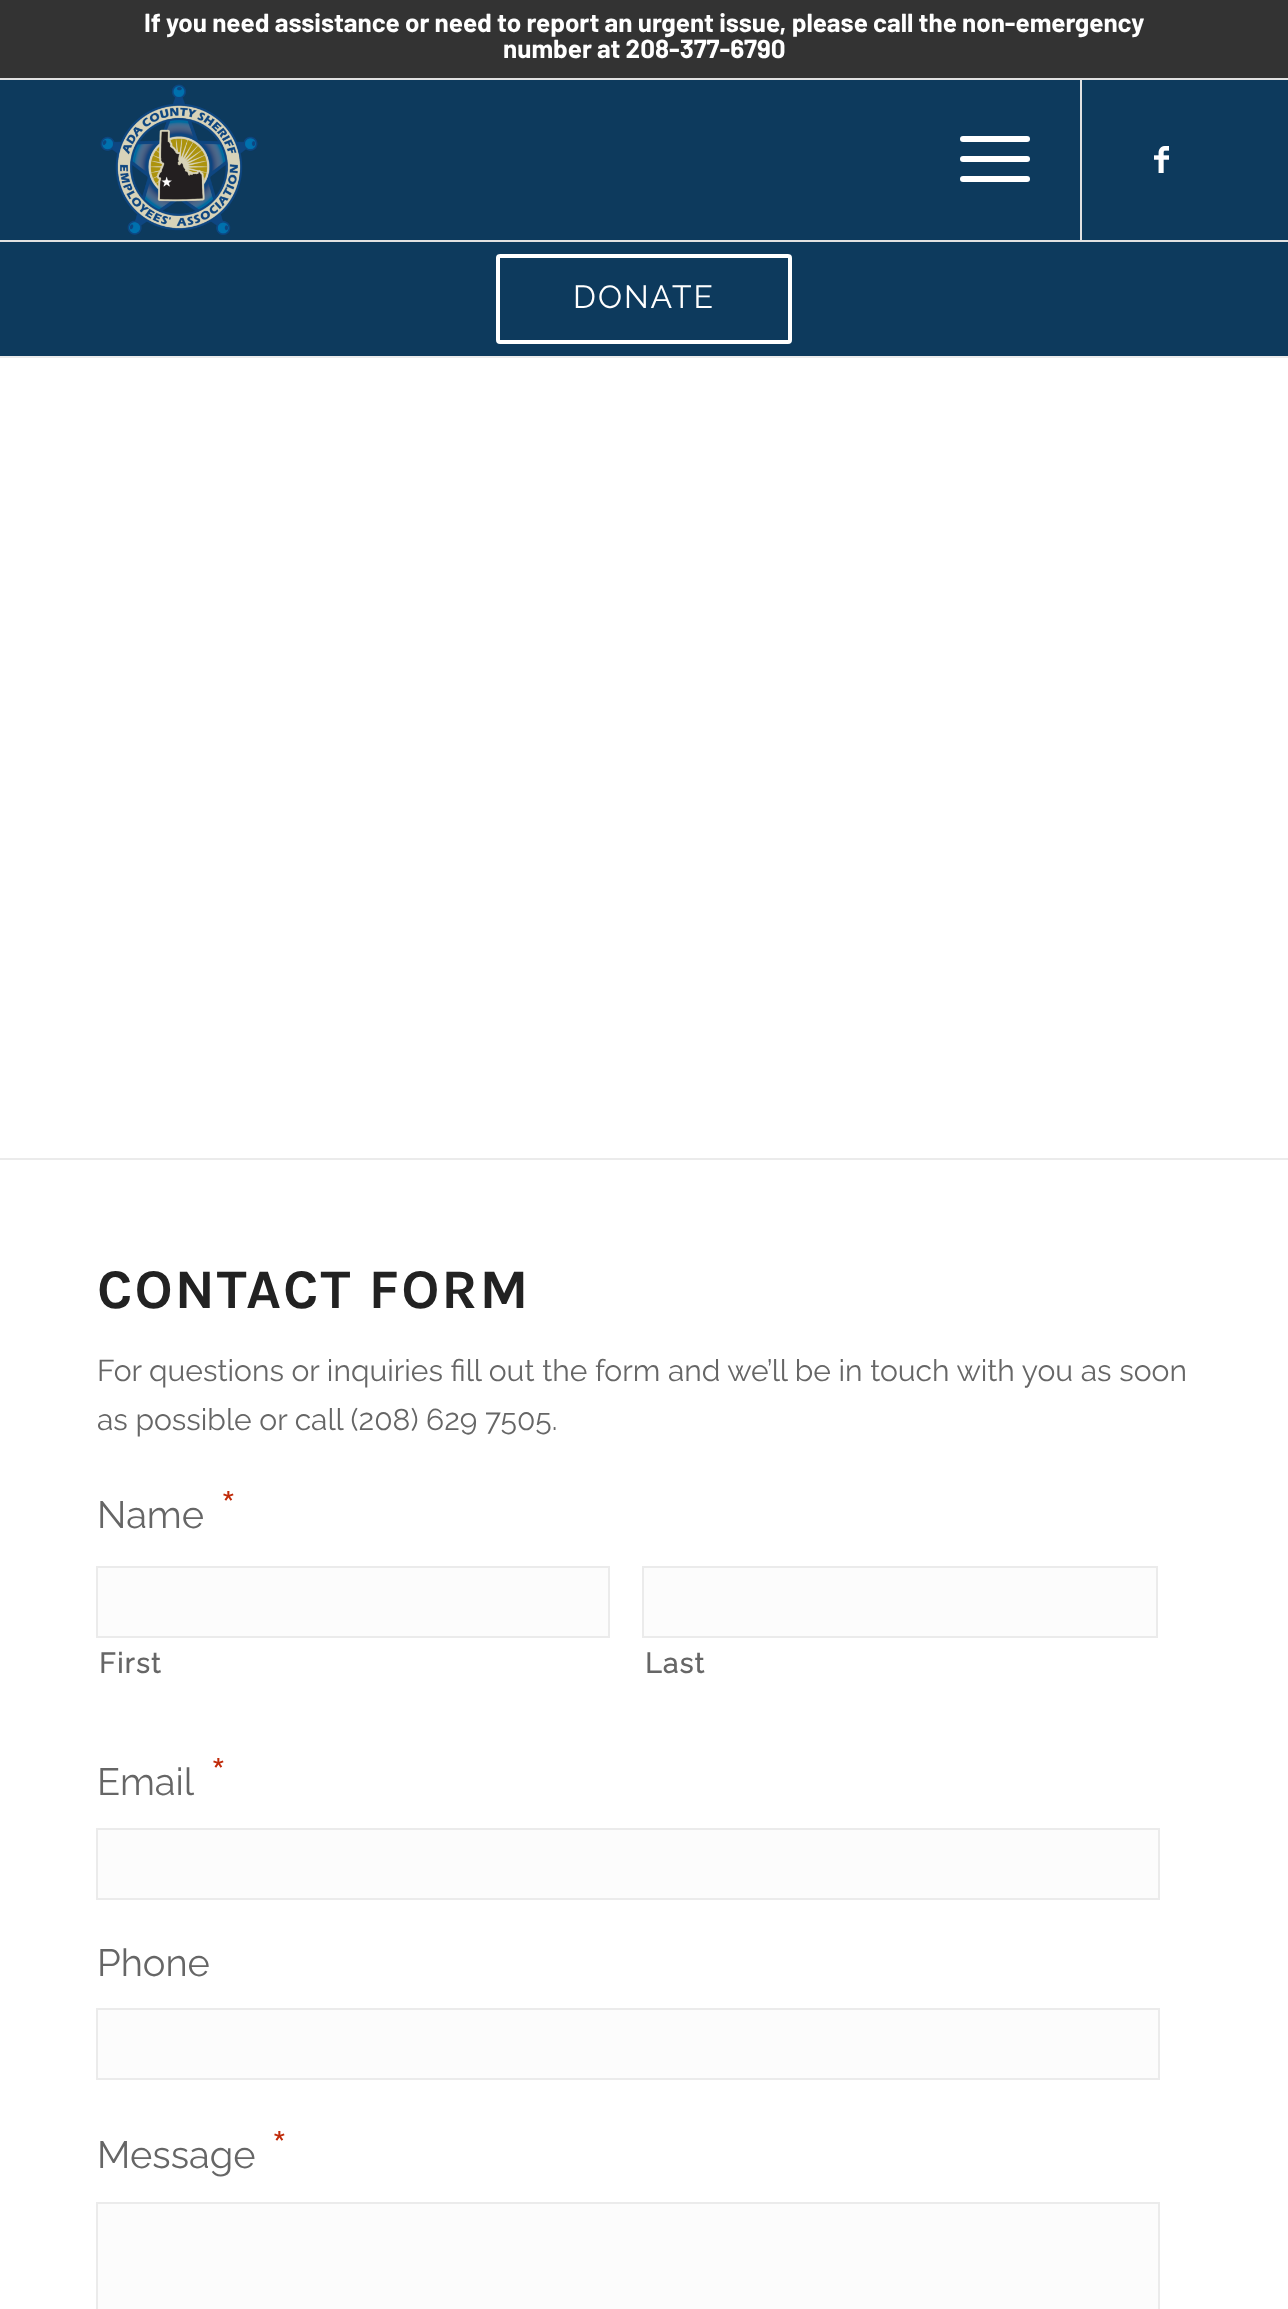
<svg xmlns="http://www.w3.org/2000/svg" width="1288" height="2309">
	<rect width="100%" height="100%" fill="#0D3A5D" />
	<rect x="0" y="0" width="1288" height="78" fill="#333333" />
	<rect x="0" y="78" width="1288" height="2" fill="#E1E1E1" />
	<g font-family="Barlow" font-size="26" font-weight="700" fill="#FFFFFF">
		<text x="144" y="32">If you need assistance or need to report an urgent issue, please call the non-emergency</text>
		<text x="503" y="58">number at 208-377-6790</text>
	</g>
	<rect x="0" y="240" width="1288" height="2" fill="#E1E1E1" />
	<image x="100" y="84" width="158" height="151" href="assets/img1.png" />
	<rect x="1080" y="80" width="2" height="160" fill="#E1E1E1" />
	<rect x="960" y="156" width="70" height="6" rx="3" fill="#FFFFFF" />
	<rect x="960" y="136" width="70" height="6" rx="3" fill="#FFFFFF" />
	<rect x="960" y="176" width="70" height="6" rx="3" fill="#FFFFFF" />
	<image x="1154" y="146" width="15" height="27" href="assets/img2.png" />
	<rect x="498" y="256" width="292" height="86" rx="2" fill="none" stroke="#FFFFFF" stroke-width="4" />
	<text x="573" y="308" font-family="Raleway" font-size="32" font-weight="100" letter-spacing="2" fill="#FFFFFF">DONATE</text>
	<rect x="0" y="358" width="1288" height="800" fill="#FFFFFF" />
	<rect x="0" y="356" width="1288" height="2" fill="#EBEBEB" />
	<rect x="0" y="1160" width="1288" height="1149" fill="#FFFFFF" />
	<rect x="0" y="1158" width="1288" height="2" fill="#EBEBEB" />
	<text x="97" y="1308" font-family="Karla" font-size="56" font-weight="700" letter-spacing="2" fill="#222222">CONTACT FORM</text>
	<g font-family="Raleway" font-size="30" font-weight="100" fill="#666666">
		<text x="97" y="1381">For questions or inquiries fill out the form and we’ll be in touch with you as soon</text>
		<text x="97" y="1430">as possible or call (208) 629 7505.</text>
	</g>
	<text x="220" y="1528" font-family="Raleway" font-size="52" font-weight="100" fill="#C02B0A">*</text>
	<text x="97" y="1528" font-family="Raleway" font-size="38" font-weight="100" fill="#666666">Name</text>
	<rect x="97" y="1567" width="512" height="70" fill="#FCFCFC" stroke="#EBEBEB" stroke-width="2" />
	<text x="99" y="1673" font-family="Raleway" font-size="28" font-weight="700" letter-spacing="1.5" fill="#666666">First</text>
	<rect x="643" y="1567" width="514" height="70" fill="#FCFCFC" stroke="#EBEBEB" stroke-width="2" />
	<text x="645" y="1673" font-family="Raleway" font-size="28" font-weight="700" letter-spacing="1.5" fill="#666666">Last</text>
	<text x="210" y="1795" font-family="Raleway" font-size="52" font-weight="100" fill="#C02B0A">*</text>
	<text x="97" y="1795" font-family="Raleway" font-size="38" font-weight="100" fill="#666666">Email</text>
	<rect x="97" y="1829" width="1062" height="70" fill="#FCFCFC" stroke="#EBEBEB" stroke-width="2" />
	<text x="97" y="1976" font-family="Raleway" font-size="38" font-weight="100" fill="#666666">Phone</text>
	<rect x="97" y="2009" width="1062" height="70" fill="#FCFCFC" stroke="#EBEBEB" stroke-width="2" />
	<text x="271" y="2168" font-family="Raleway" font-size="52" font-weight="100" fill="#C02B0A">*</text>
	<text x="97" y="2168" font-family="Raleway" font-size="38" font-weight="100" fill="#666666">Message</text>
	<rect x="97" y="2203" width="1062" height="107" fill="#FCFCFC" stroke="#EBEBEB" stroke-width="2" />
</svg>
